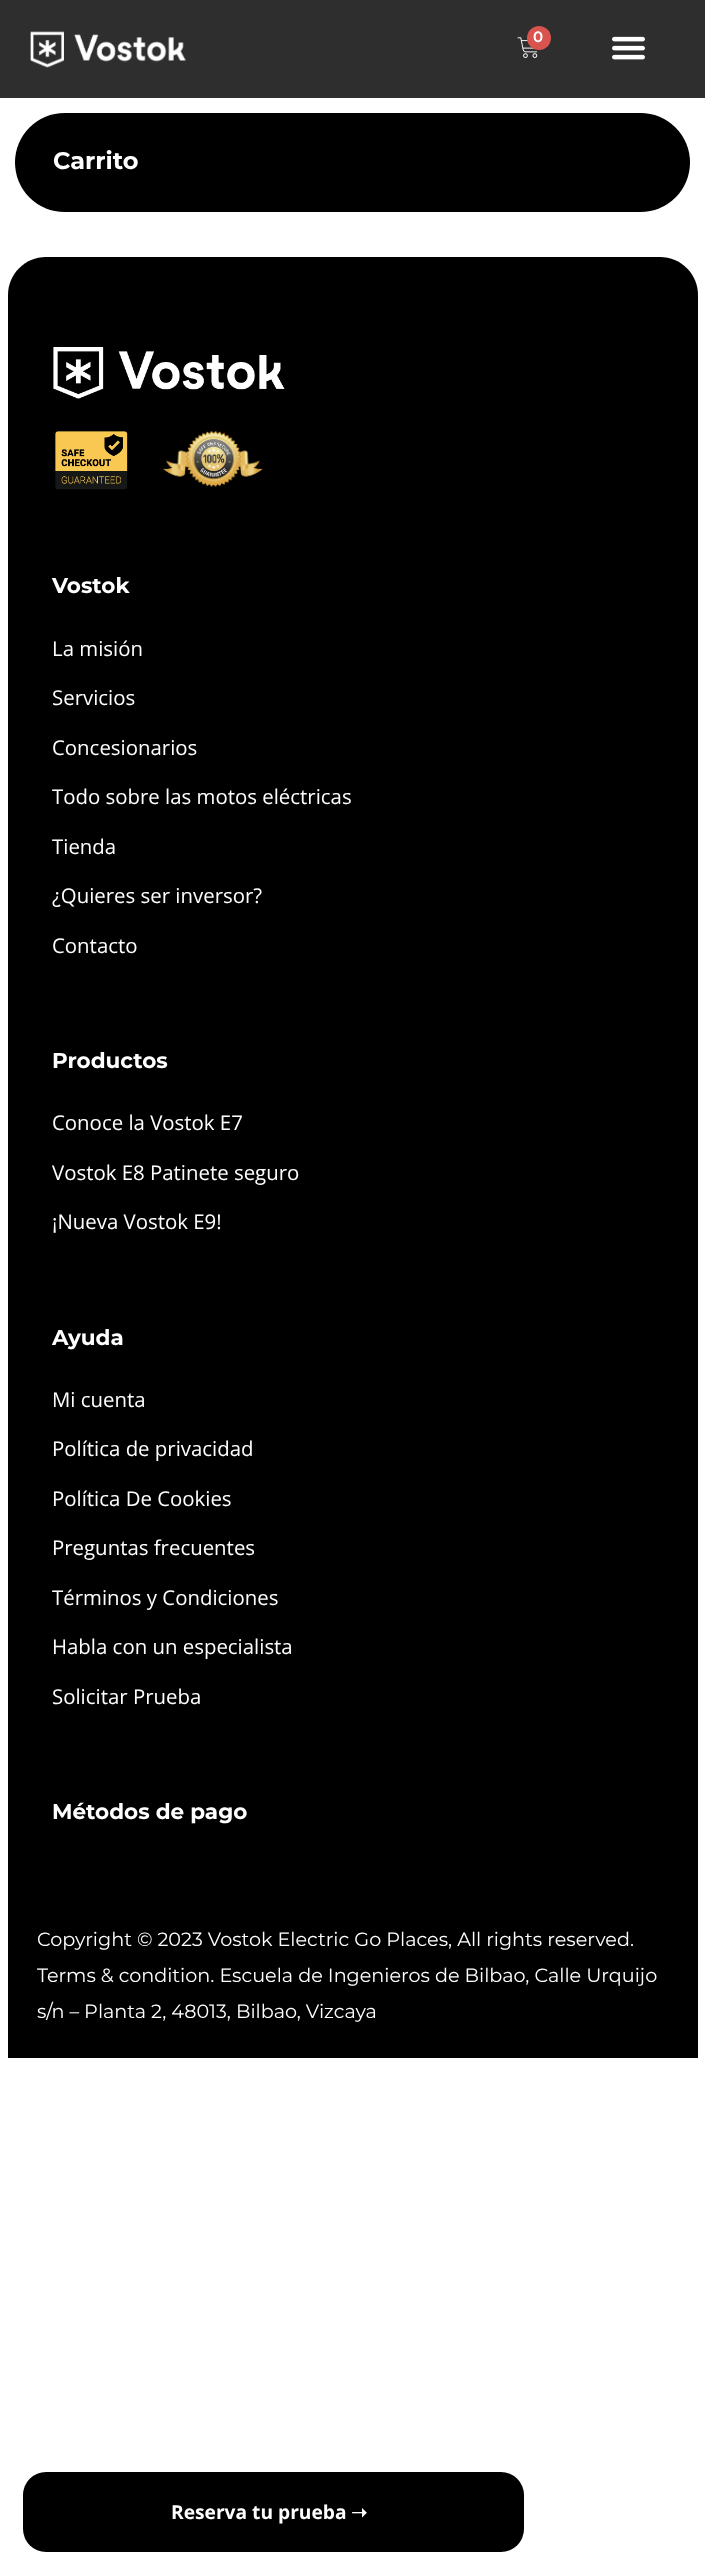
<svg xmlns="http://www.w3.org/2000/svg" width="705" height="2574">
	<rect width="100%" height="100%" fill="#FFFFFF" />
	<rect x="0" y="0" width="705" height="98" fill="#2E2E2E" />
	<image x="30" y="31" width="156" height="37" href="assets/img1.png" />
	<image x="517" y="37" width="21" height="21" href="assets/img2.png" />
	<circle cx="539" cy="38" r="12" fill="#D9534F" />
	<text x="533" y="42" font-family="Montserrat" font-size="15" font-weight="600" fill="#FFFFFF">0</text>
	<image x="612" y="36" width="33" height="24" href="assets/img3.png" />
	<rect x="15" y="113" width="675" height="99" rx="49.5" fill="#000000" />
	<text x="53" y="169" font-family="Montserrat" font-size="24" font-weight="700" fill="#FFFFFF">Carrito</text>
	<path d="M46 257H660C681 257 698 274 698 295V1890H8V295C8 274 25 257 46 257Z" fill="#000000" />
	<image x="53" y="347" width="232" height="52" href="assets/img4.png" />
	<image x="55" y="431" width="73" height="59" href="assets/img5.png" />
	<image x="163" y="430" width="100" height="57" href="assets/img6.png" />
	<text x="52" y="593" font-family="Montserrat" font-size="21.5" font-weight="700" fill="#FFFFFF">Vostok</text>
	<g font-family="Open Sans" font-size="20.4" fill="#FFFFFF">
		<text x="52" y="656">La misión</text>
		<text x="52" y="705">Servicios</text>
		<text x="52" y="755">Concesionarios</text>
		<text x="52" y="804">Todo sobre las motos eléctricas</text>
		<text x="52" y="854">Tienda</text>
		<text x="52" y="903">¿Quieres ser inversor?</text>
		<text x="52" y="953">Contacto</text>
	</g>
	<text x="52" y="1068" font-family="Montserrat" font-size="21.5" font-weight="700" fill="#FFFFFF">Productos</text>
	<g font-family="Open Sans" font-size="20.4" fill="#FFFFFF">
		<text x="52" y="1130">Conoce la Vostok E7</text>
		<text x="52" y="1180">Vostok E8 Patinete seguro</text>
		<text x="52" y="1229">¡Nueva Vostok E9!</text>
	</g>
	<text x="52" y="1345" font-family="Montserrat" font-size="21.5" font-weight="700" fill="#FFFFFF">Ayuda</text>
	<g font-family="Open Sans" font-size="20.4" fill="#FFFFFF">
		<text x="52" y="1407">Mi cuenta</text>
		<text x="52" y="1456">Política de privacidad</text>
		<text x="52" y="1506">Política De Cookies</text>
		<text x="52" y="1555">Preguntas frecuentes</text>
		<text x="52" y="1605">Términos y Condiciones</text>
		<text x="52" y="1654">Habla con un especialista</text>
		<text x="52" y="1704">Solicitar Prueba</text>
	</g>
	<text x="52" y="1819" font-family="Montserrat" font-size="21.5" font-weight="700" fill="#FFFFFF">Métodos de pago</text>
	<rect x="8" y="1890" width="690" height="168" fill="#000000" />
	<g font-family="Montserrat" font-size="19.2" font-weight="100" fill="#FFFFFF">
		<text x="37" y="1946">Copyright © 2023 Vostok Electric Go Places, All rights reserved.</text>
		<text x="37" y="1982">Terms &amp; condition. Escuela de Ingenieros de Bilbao, Calle Urquijo</text>
		<text x="37" y="2018">s/n – Planta 2, 48013, Bilbao, Vizcaya</text>
	</g>
	<rect x="23" y="2472" width="501" height="80" rx="23" fill="#000000" />
	<text x="171" y="2519" font-family="Open Sans" font-size="19.2" font-weight="700" fill="#FFFFFF">Reserva tu prueba</text>
	<text x="351" y="2519" font-family="DejaVu Sans" font-size="19.2" font-weight="700" fill="#FFFFFF">➝</text>
</svg>
